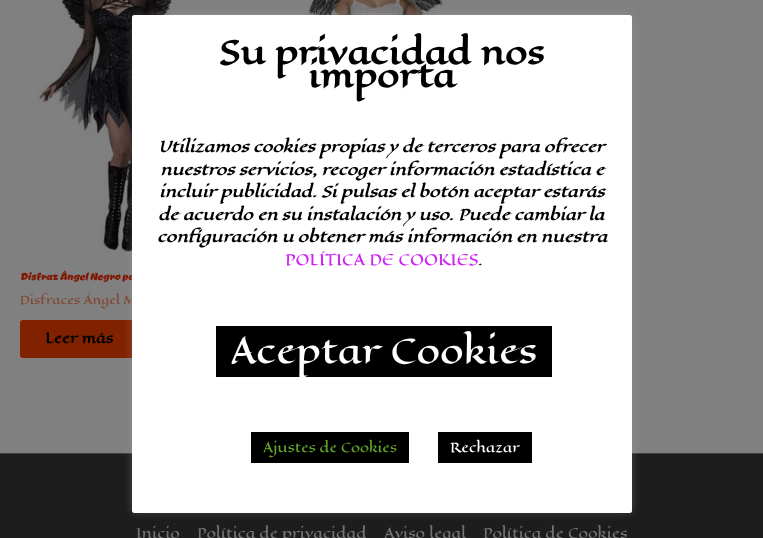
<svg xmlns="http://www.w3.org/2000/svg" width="763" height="538">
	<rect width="100%" height="100%" fill="#808080" />
	<image x="279" y="0" width="195" height="15" href="assets/img1.png" />
	<image x="38" y="0" width="182" height="252" href="assets/img2.png" />
	<rect x="20" y="320" width="118" height="38" rx="3" fill="#802200" />
	<rect x="0" y="453" width="763" height="1" fill="#3D3D3D" />
	<rect x="0" y="454" width="763" height="84" fill="#1D1D1D" />
	<rect x="132" y="14" width="500" height="498" rx="2.5" fill="#ACABAB" fill-opacity="0.3" filter="blur(5px)" />
	<text x="20" y="280" font-family="Ceviche One" font-size="13.75" fill="#801500">Disfraz Ángel Negro pa</text>
	<text x="20" y="304" font-family="Eagle Lake" font-size="11.6" fill="#804733">Disfraces Ángel M</text>
	<rect x="132" y="15" width="500" height="498" rx="2.5" fill="#FFFFFF" />
	<g font-family="Eagle Lake" font-size="32" font-weight="700" fill="#000000">
		<text x="219" y="64">Su privacidad nos</text>
		<text x="308" y="87">importa</text>
	</g>
	<g font-family="Eagle Lake" font-size="15" font-weight="700" font-style="italic" fill="#000000">
		<text x="158" y="152">Utilizamos cookies propias y de terceros para ofrecer</text>
		<text x="160" y="175">nuestros servicios, recoger información estadística e</text>
		<text x="159" y="197">incluir publicidad. Si pulsas el botón aceptar estarás</text>
		<text x="158" y="220">de acuerdo en su instalación y uso. Puede cambiar la</text>
		<text x="157" y="242">configuración u obtener más información en nuestra</text>
	</g>
	<text x="285" y="265" font-family="Eagle Lake" font-size="15" fill="#CD24F5">POLÍTICA DE COOKIES</text>
	<text x="478" y="265" font-family="Eagle Lake" font-size="15" fill="#000000">.</text>
	<rect x="216" y="326" width="336" height="51" fill="#000000" />
	<text x="230" y="363" font-family="Eagle Lake" font-size="34" fill="#FFFFFF">Aceptar Cookies</text>
	<rect x="251" y="432" width="158" height="31" fill="#000000" />
	<text x="263" y="452" font-family="Eagle Lake" font-size="13" fill="#62A329">Ajustes de Cookies</text>
	<rect x="438" y="432" width="94" height="31" fill="#000000" />
	<text x="450" y="452" font-family="Eagle Lake" font-size="13" fill="#FFFFFF">Rechazar</text>
	<text x="45" y="343" font-family="Eagle Lake" font-size="13.75" font-weight="700" fill="#000000">Leer más</text>
	<g font-family="Eagle Lake" font-size="13.75" fill="#737373">
		<text x="136" y="538">Inicio</text>
		<text x="197" y="538">Política de privacidad</text>
		<text x="384" y="538">Aviso legal</text>
		<text x="483" y="538">Política de Cookies</text>
	</g>
</svg>
